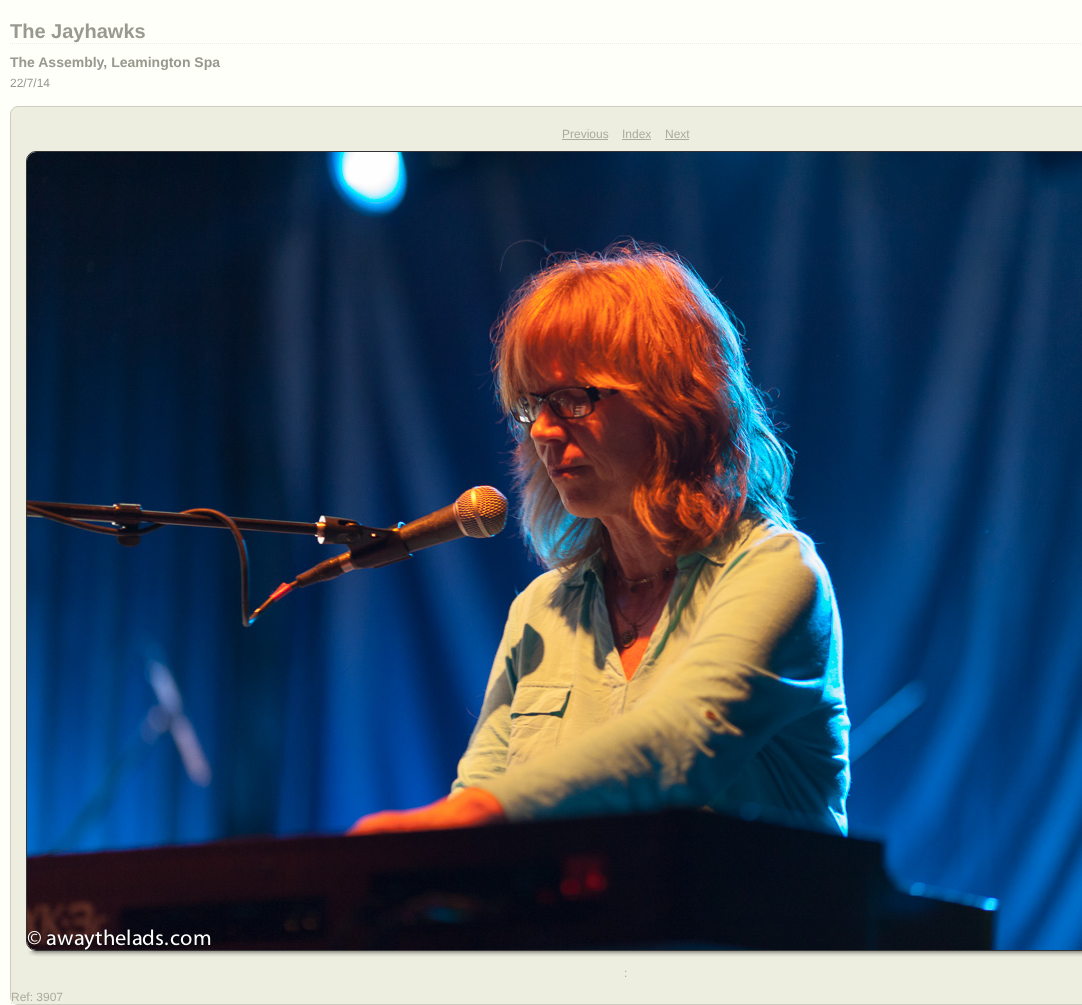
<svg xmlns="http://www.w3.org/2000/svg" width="1082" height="1005">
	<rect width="100%" height="100%" fill="#FFFFFA" />
	<path d="M10 43.5H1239" fill="none" stroke="#EEEEE0" stroke-dasharray="1 1" />
	<text x="10" y="38" font-family="Liberation Sans" font-size="20" font-weight="700" fill="#999990">The Jayhawks</text>
	<text x="10" y="67" font-family="Liberation Sans" font-size="14" font-weight="700" fill="#999990">The Assembly, Leamington Spa</text>
	<text x="10" y="87" font-family="Liberation Sans" font-size="12" fill="#999990">22/7/14</text>
	<rect x="10.5" y="106.5" width="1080" height="898" rx="7.5" fill="#EEEEE0" stroke="#CCCCC0" />
	<text x="562" y="138" font-family="Liberation Sans" font-size="12" fill="#AAAAA0">Previous</text>
	<rect x="562" y="139" width="46" height="1" fill="#AAAAA0" />
	<text x="622" y="138" font-family="Liberation Sans" font-size="12" fill="#AAAAA0">Index</text>
	<rect x="622" y="139" width="29" height="1" fill="#AAAAA0" />
	<text x="665" y="138" font-family="Liberation Sans" font-size="12" fill="#AAAAA0">Next</text>
	<rect x="665" y="139" width="24" height="1" fill="#AAAAA0" />
	<image x="36" y="951" width="1046" height="6" href="assets/img1.png" />
	<rect x="26.5" y="151.5" width="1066" height="799" rx="9.5" fill="none" stroke="#333333" />
	<image x="27" y="152" width="1055" height="798" href="assets/img2.png" />
	<image x="28" y="951" width="8" height="5" href="assets/img3.png" />
	<text x="624" y="977" font-family="Liberation Sans" font-size="12" fill="#AAAAA0">:</text>
	<rect x="11" y="998" width="6" height="6" fill="#EEEEE0" />
	<text x="11" y="1001" font-family="Liberation Sans" font-size="12" fill="#AAAAA0">Ref: 3907</text>
</svg>
